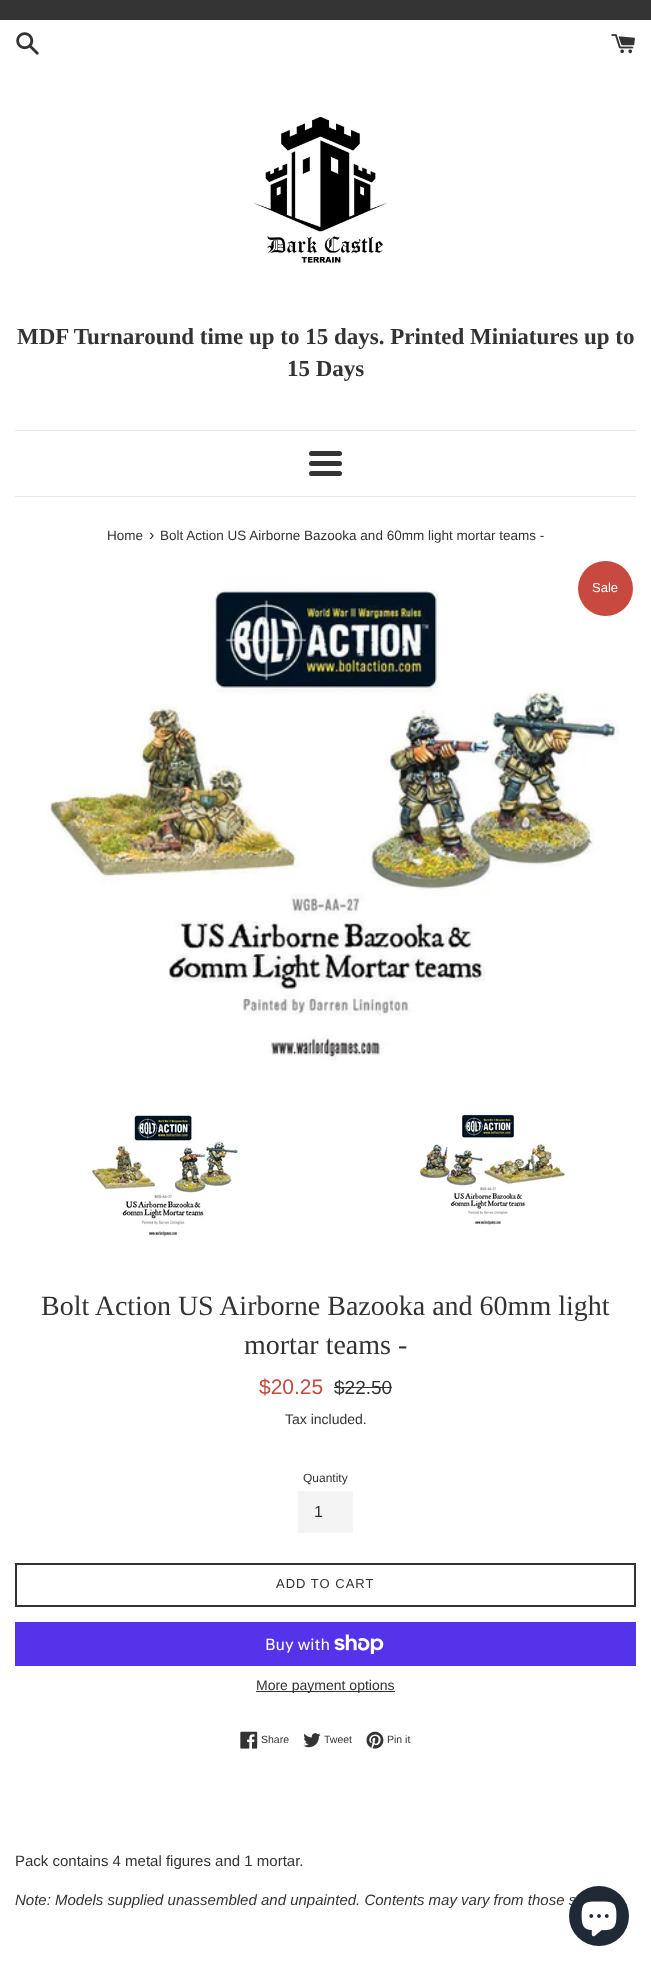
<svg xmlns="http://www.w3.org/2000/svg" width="651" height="1967">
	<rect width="100%" height="100%" fill="#FFFFFF" />
	<rect x="0" y="0" width="651" height="20" fill="#333333" />
	<image x="16" y="32" width="23" height="23" href="assets/img1.png" />
	<image x="611" y="34" width="24" height="20" href="assets/img2.png" />
	<image x="254" y="116" width="133" height="148" href="assets/img3.png" />
	<g font-family="Liberation Serif" font-size="23" font-weight="700" fill="#333333">
		<text x="17" y="344">MDF Turnaround time up to 15 days. Printed Miniatures up to</text>
		<text x="287" y="376">15 Days</text>
	</g>
	<rect x="15" y="430" width="621" height="1" fill="#E8E8E8" />
	<rect x="309" y="451" width="33" height="5" rx="2.5" fill="#333333" />
	<rect x="309" y="461" width="33" height="5" rx="2.5" fill="#333333" />
	<rect x="309" y="471" width="33" height="5" rx="2.5" fill="#333333" />
	<rect x="15" y="496" width="621" height="1" fill="#E8E8E8" />
	<text x="107" y="540" font-family="Liberation Sans" font-size="13.5" fill="#333333">Home</text>
	<text x="149" y="540" font-family="Liberation Sans" font-size="16" fill="#333333">›</text>
	<text x="160" y="540" font-family="Liberation Sans" font-size="13.5" fill="#333333">Bolt Action US Airborne Bazooka and 60mm light mortar teams -</text>
	<image x="47" y="587" width="573" height="474" href="assets/img4.png" />
	<circle cx="605.5" cy="588.5" r="27.5" fill="#C8493F" />
	<text x="592" y="592" font-family="Liberation Sans" font-size="13" fill="#FFFFFF">Sale</text>
	<image x="91" y="1115" width="152" height="121" href="assets/img5.png" />
	<image x="419" y="1114" width="149" height="113" href="assets/img6.png" />
	<g font-family="Liberation Serif" font-size="28" fill="#333333">
		<text x="41" y="1315">Bolt Action US Airborne Bazooka and 60mm light</text>
		<text x="244" y="1354">mortar teams -</text>
	</g>
	<text x="259" y="1394" font-family="Liberation Sans" font-size="21" fill="#C8493F">$20.25</text>
	<text x="334" y="1394" font-family="Liberation Sans" font-size="19" fill="#333333">$22.50</text>
	<rect x="334" y="1387" width="58" height="1" fill="#333333" />
	<text x="285" y="1424" font-family="Liberation Sans" font-size="14" fill="#333333">Tax included.</text>
	<text x="303" y="1482" font-family="Liberation Sans" font-size="12" fill="#333333">Quantity</text>
	<rect x="298" y="1491" width="55" height="42" fill="#F4F4F4" />
	<text x="314" y="1517" font-family="Liberation Sans" font-size="16" fill="#333333">1</text>
	<rect x="16" y="1564" width="619" height="42" fill="none" stroke="#333333" stroke-width="2" />
	<text x="276" y="1588" font-family="Liberation Sans" font-size="13" letter-spacing="1" fill="#333333">ADD TO CART</text>
	<rect x="15" y="1622" width="621" height="44" fill="#5433EB" />
	<text x="265" y="1650" font-family="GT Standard" font-size="16" fill="#FFFFFF">Buy with</text>
	<image x="334" y="1634" width="50" height="20" href="assets/img7.png" />
	<rect x="256" y="1691" width="139" height="1" fill="#333333" />
	<text x="256" y="1690" font-family="Liberation Sans" font-size="14" fill="#333333">More payment options</text>
	<image x="240" y="1731" width="18" height="18" href="assets/img8.png" />
	<text x="261" y="1743" font-family="Liberation Sans" font-size="10.5" fill="#333333">Share</text>
	<image x="303" y="1733" width="18" height="15" href="assets/img9.png" />
	<text x="324" y="1743" font-family="Liberation Sans" font-size="10.5" fill="#333333">Tweet</text>
	<image x="366" y="1731" width="18" height="18" href="assets/img10.png" />
	<text x="387" y="1743" font-family="Liberation Sans" font-size="10.5" fill="#333333">Pin it</text>
	<text x="15" y="1866" font-family="Liberation Sans" font-size="15" fill="#333333">Pack contains 4 metal figures and 1 mortar.</text>
	<text x="15" y="1905" font-family="Liberation Sans" font-size="15" font-style="italic" fill="#333333">Note: Models supplied unassembled and unpainted. Contents may vary from those s</text>
	<circle cx="599" cy="1916" r="30" fill="#202A36" />
	<image x="581" y="1901" width="36" height="36" href="assets/img11.png" />
</svg>
